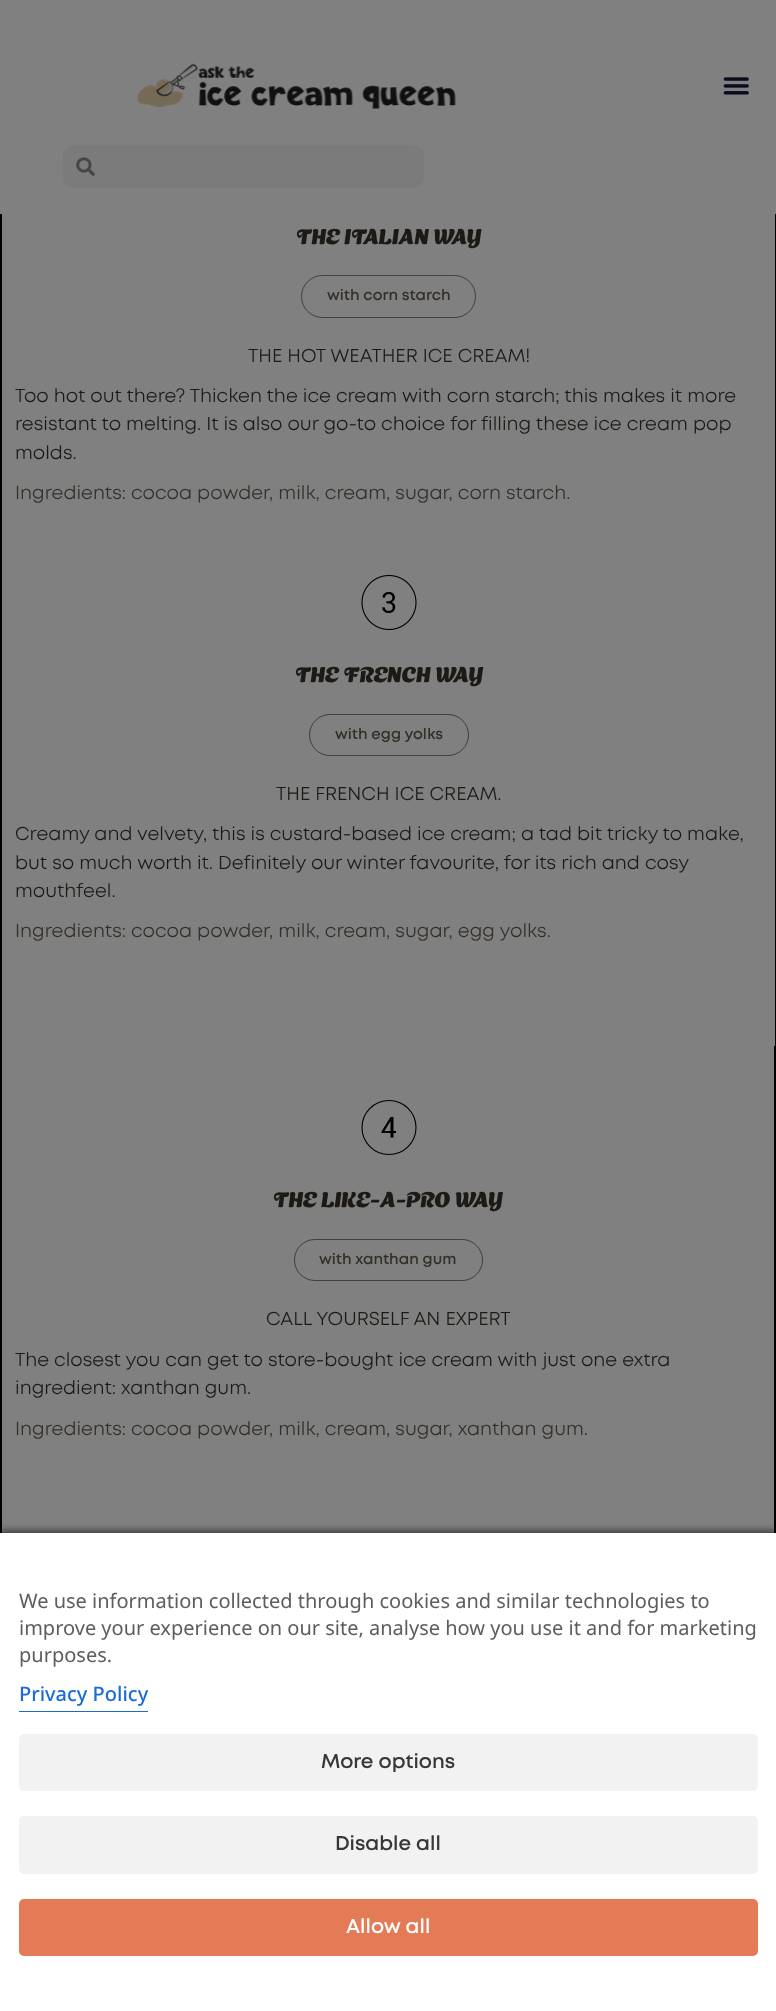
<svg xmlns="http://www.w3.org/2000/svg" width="776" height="2011">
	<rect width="100%" height="100%" fill="#808080" />
	<image x="137" y="63" width="319" height="46" href="assets/img1.png" />
	<image x="723" y="77" width="26" height="18" href="assets/img2.png" />
	<rect x="63" y="145" width="361" height="43" rx="11" fill="#7B7B7B" />
	<image x="76" y="157" width="19" height="19" href="assets/img3.png" />
	<rect x="775" y="214" width="1" height="1319" fill="#000000" />
	<rect x="0" y="214" width="1" height="1319" fill="#000000" />
	<rect x="1" y="214" width="1" height="1319" fill="#000000" />
	<text x="296" y="244" font-family="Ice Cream" font-size="21.25" font-style="italic" fill="#1D1A16">THE ITALIAN WAY</text>
	<rect x="301.5" y="275.5" width="174" height="42" rx="21" fill="none" stroke="#453F35" />
	<text x="327" y="300" font-family="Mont" font-size="15" font-weight="600" fill="#342F28">with corn starch</text>
	<g font-family="Mont" font-size="18.75" fill="#1D1A16">
		<text x="248" y="362">THE HOT WEATHER ICE CREAM!</text>
		<text x="15" y="402">Too hot out there? Thicken the ice cream with corn starch; this makes it more</text>
		<text x="15" y="430">resistant to melting. It is also our go-to choice for filling these ice cream pop</text>
		<text x="15" y="459">molds.</text>
	</g>
	<text x="15" y="499" font-family="Mont" font-size="18.75" fill="#342F28">Ingredients: cocoa powder, milk, cream, sugar, corn starch.</text>
	<image x="361" y="574" width="56" height="57" href="assets/img4.png" />
	<text x="295" y="682" font-family="Ice Cream" font-size="21.25" font-style="italic" fill="#1D1A16">THE FRENCH WAY</text>
	<rect x="309.5" y="714.5" width="159" height="41" rx="20.5" fill="none" stroke="#453F35" />
	<text x="335" y="739" font-family="Mont" font-size="15" font-weight="600" fill="#342F28">with egg yolks</text>
	<g font-family="Mont" font-size="18.75" fill="#1D1A16">
		<text x="276" y="800">THE FRENCH ICE CREAM.</text>
		<text x="15" y="840">Creamy and velvety, this is custard-based ice cream; a tad bit tricky to make,</text>
		<text x="15" y="869">but so much worth it. Definitely our winter favourite, for its rich and cosy</text>
		<text x="15" y="897">mouthfeel.</text>
	</g>
	<text x="15" y="937" font-family="Mont" font-size="18.75" fill="#342F28">Ingredients: cocoa powder, milk, cream, sugar, egg yolks.</text>
	<rect x="774" y="1046" width="1" height="487" fill="#000000" />
	<circle cx="389" cy="1127.5" r="27" fill="none" stroke="#000000" stroke-width="1.1" />
	<path d="M393.5 1131H396V1133H393.5V1137.5H390.5V1133H381.5V1131.5L390.5 1117H393.5ZM384.5 1131H390.5V1121Z" fill="#000000" />
	<text x="273" y="1207" font-family="Ice Cream" font-size="21.25" font-style="italic" fill="#1D1A16">THE LIKE-A-PRO WAY</text>
	<rect x="294.5" y="1239.5" width="188" height="41" rx="20.5" fill="none" stroke="#453F35" />
	<text x="319" y="1264" font-family="Mont" font-size="15" font-weight="600" fill="#342F28">with xanthan gum</text>
	<g font-family="Mont" font-size="18.75" fill="#1D1A16">
		<text x="266" y="1325">CALL YOURSELF AN EXPERT</text>
		<text x="15" y="1366">The closest you can get to store-bought ice cream with just one extra</text>
		<text x="15" y="1394">ingredient: xanthan gum.</text>
	</g>
	<text x="15" y="1435" font-family="Mont" font-size="18.75" fill="#342F28">Ingredients: cocoa powder, milk, cream, sugar, xanthan gum.</text>
	<rect x="0" y="1530" width="776" height="479" fill="#000000" fill-opacity="0.5" filter="blur(3px)" />
	<rect x="0" y="1533" width="776" height="478" fill="#FFFFFF" />
	<g font-family="Noto Sans" font-size="20" fill="#5D5D5D">
		<text x="19" y="1608">We use information collected through cookies and similar technologies to</text>
		<text x="19" y="1635">improve your experience on our site, analyse how you use it and for marketing</text>
		<text x="19" y="1662">purposes.</text>
	</g>
	<text x="19" y="1701" font-family="Noto Sans" font-size="20" font-weight="500" fill="#1A6BD7">Privacy Policy</text>
	<rect x="19" y="1711" width="129" height="1" fill="#1A6BD7" />
	<rect x="19" y="1734" width="739" height="57" rx="5" fill="#F2F2F2" />
	<text x="321" y="1768" font-family="Mont" font-size="20" font-weight="600" fill="#373737">More options</text>
	<rect x="19" y="1816" width="739" height="58" rx="5" fill="#F2F2F2" />
	<text x="335" y="1850" font-family="Mont" font-size="20" font-weight="600" fill="#373737">Disable all</text>
	<rect x="19" y="1899" width="739" height="57" rx="5" fill="#E47A56" />
	<text x="346" y="1933" font-family="Mont" font-size="20" font-weight="600" fill="#FFFFFF">Allow all</text>
</svg>
